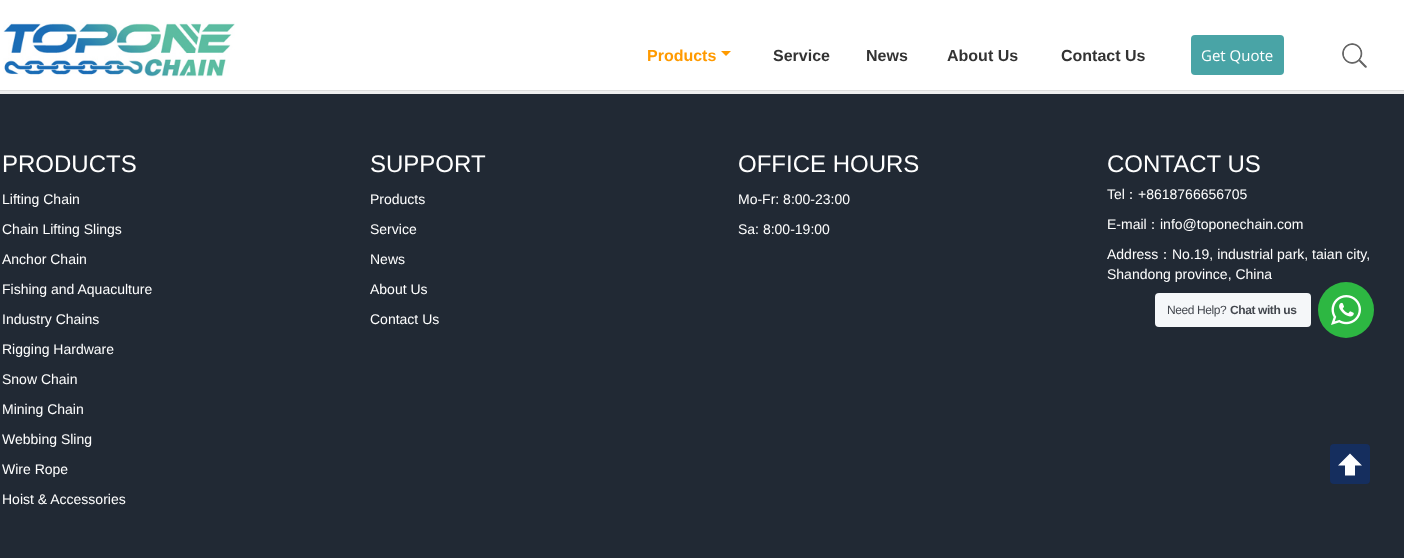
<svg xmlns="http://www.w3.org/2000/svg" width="1404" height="558">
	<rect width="100%" height="100%" fill="#212934" />
	<rect x="0" y="0" width="1404" height="90" fill="#FFFFFF" />
	<rect x="0" y="90" width="1404" height="1" fill="#DDDDDD" />
	<image x="3" y="22" width="232" height="55" href="assets/img1.png" />
	<text x="647" y="61" font-family="Liberation Sans" font-size="16" font-weight="700" fill="#FF9A00">Products</text>
	<path d="M721 51H731L726 56Z" fill="#FF9A00" />
	<g font-family="Liberation Sans" font-size="16" font-weight="700" fill="#333333">
		<text x="773" y="61">Service</text>
		<text x="866" y="61">News</text>
		<text x="947" y="61">About Us</text>
		<text x="1061" y="61">Contact Us</text>
	</g>
	<rect x="1191" y="35" width="93" height="40" rx="4" fill="#49A4A6" />
	<text x="1201" y="61" font-family="Open Sans" font-size="15" fill="#FFFFFF">Get Quote</text>
	<image x="1342" y="43" width="25" height="25" href="assets/img2.png" />
	<rect x="0" y="91" width="1404" height="3" fill="#EEEEEE" />
	<text x="2" y="172" font-family="Liberation Sans" font-size="24" fill="#FFFFFF">PRODUCTS</text>
	<g font-family="Liberation Sans" font-size="14" fill="#FFFFFF">
		<text x="2" y="204">Lifting Chain</text>
		<text x="2" y="234">Chain Lifting Slings</text>
		<text x="2" y="264">Anchor Chain</text>
		<text x="2" y="294">Fishing and Aquaculture</text>
		<text x="2" y="324">Industry Chains</text>
		<text x="2" y="354">Rigging Hardware</text>
		<text x="2" y="384">Snow Chain</text>
		<text x="2" y="414">Mining Chain</text>
		<text x="2" y="444">Webbing Sling</text>
		<text x="2" y="474">Wire Rope</text>
		<text x="2" y="504">Hoist &amp; Accessories</text>
	</g>
	<text x="370" y="172" font-family="Liberation Sans" font-size="24" fill="#FFFFFF">SUPPORT</text>
	<g font-family="Liberation Sans" font-size="14" fill="#FFFFFF">
		<text x="370" y="204">Products</text>
		<text x="370" y="234">Service</text>
		<text x="370" y="264">News</text>
		<text x="370" y="294">About Us</text>
		<text x="370" y="324">Contact Us</text>
	</g>
	<text x="738" y="172" font-family="Liberation Sans" font-size="24" fill="#FFFFFF">OFFICE HOURS</text>
	<g font-family="Liberation Sans" font-size="14" fill="#FFFFFF">
		<text x="738" y="204">Mo-Fr: 8:00-23:00</text>
		<text x="738" y="234">Sa: 8:00-19:00</text>
	</g>
	<text x="1107" y="172" font-family="Liberation Sans" font-size="24" fill="#FFFFFF">CONTACT US</text>
	<text x="1107" y="199" font-family="Liberation Sans" font-size="14" fill="#FFFFFF">Tel</text>
	<text x="1124" y="199" font-family="WenQuanYi Zen Hei" font-size="14" font-weight="500" fill="#FFFFFF">：</text>
	<g font-family="Liberation Sans" font-size="14" fill="#FFFFFF">
		<text x="1138" y="199">+8618766656705</text>
		<text x="1107" y="229">E-mail</text>
	</g>
	<text x="1146" y="229" font-family="WenQuanYi Zen Hei" font-size="14" font-weight="500" fill="#FFFFFF">：</text>
	<g font-family="Liberation Sans" font-size="14" fill="#FFFFFF">
		<text x="1160" y="229">info@toponechain.com</text>
		<text x="1107" y="259">Address</text>
	</g>
	<text x="1158" y="259" font-family="WenQuanYi Zen Hei" font-size="14" font-weight="500" fill="#FFFFFF">：</text>
	<g font-family="Liberation Sans" font-size="14" fill="#FFFFFF">
		<text x="1172" y="259">No.19, industrial park, taian city,</text>
		<text x="1107" y="279">Shandong province, China</text>
	</g>
	<rect x="1155" y="293" width="156" height="34" rx="4" fill="#F5F7F9" />
	<text x="1167" y="314" font-family="Liberation Sans" font-size="12" letter-spacing="-0.4" fill="#43474E">Need Help?</text>
	<text x="1230" y="314" font-family="Liberation Sans" font-size="12" font-weight="700" letter-spacing="-0.4" fill="#43474E">Chat with us</text>
	<circle cx="1346" cy="310" r="28" fill="#2DB742" />
	<image x="1331" y="295" width="30" height="30" href="assets/img3.png" />
	<rect x="1330" y="444" width="40" height="40" rx="4" fill="#152E5E" />
	<path d="M1362 465.5L1350 453.5L1338 465.5H1345V475.5H1355V465.5Z" fill="#FFFFFF" />
</svg>
